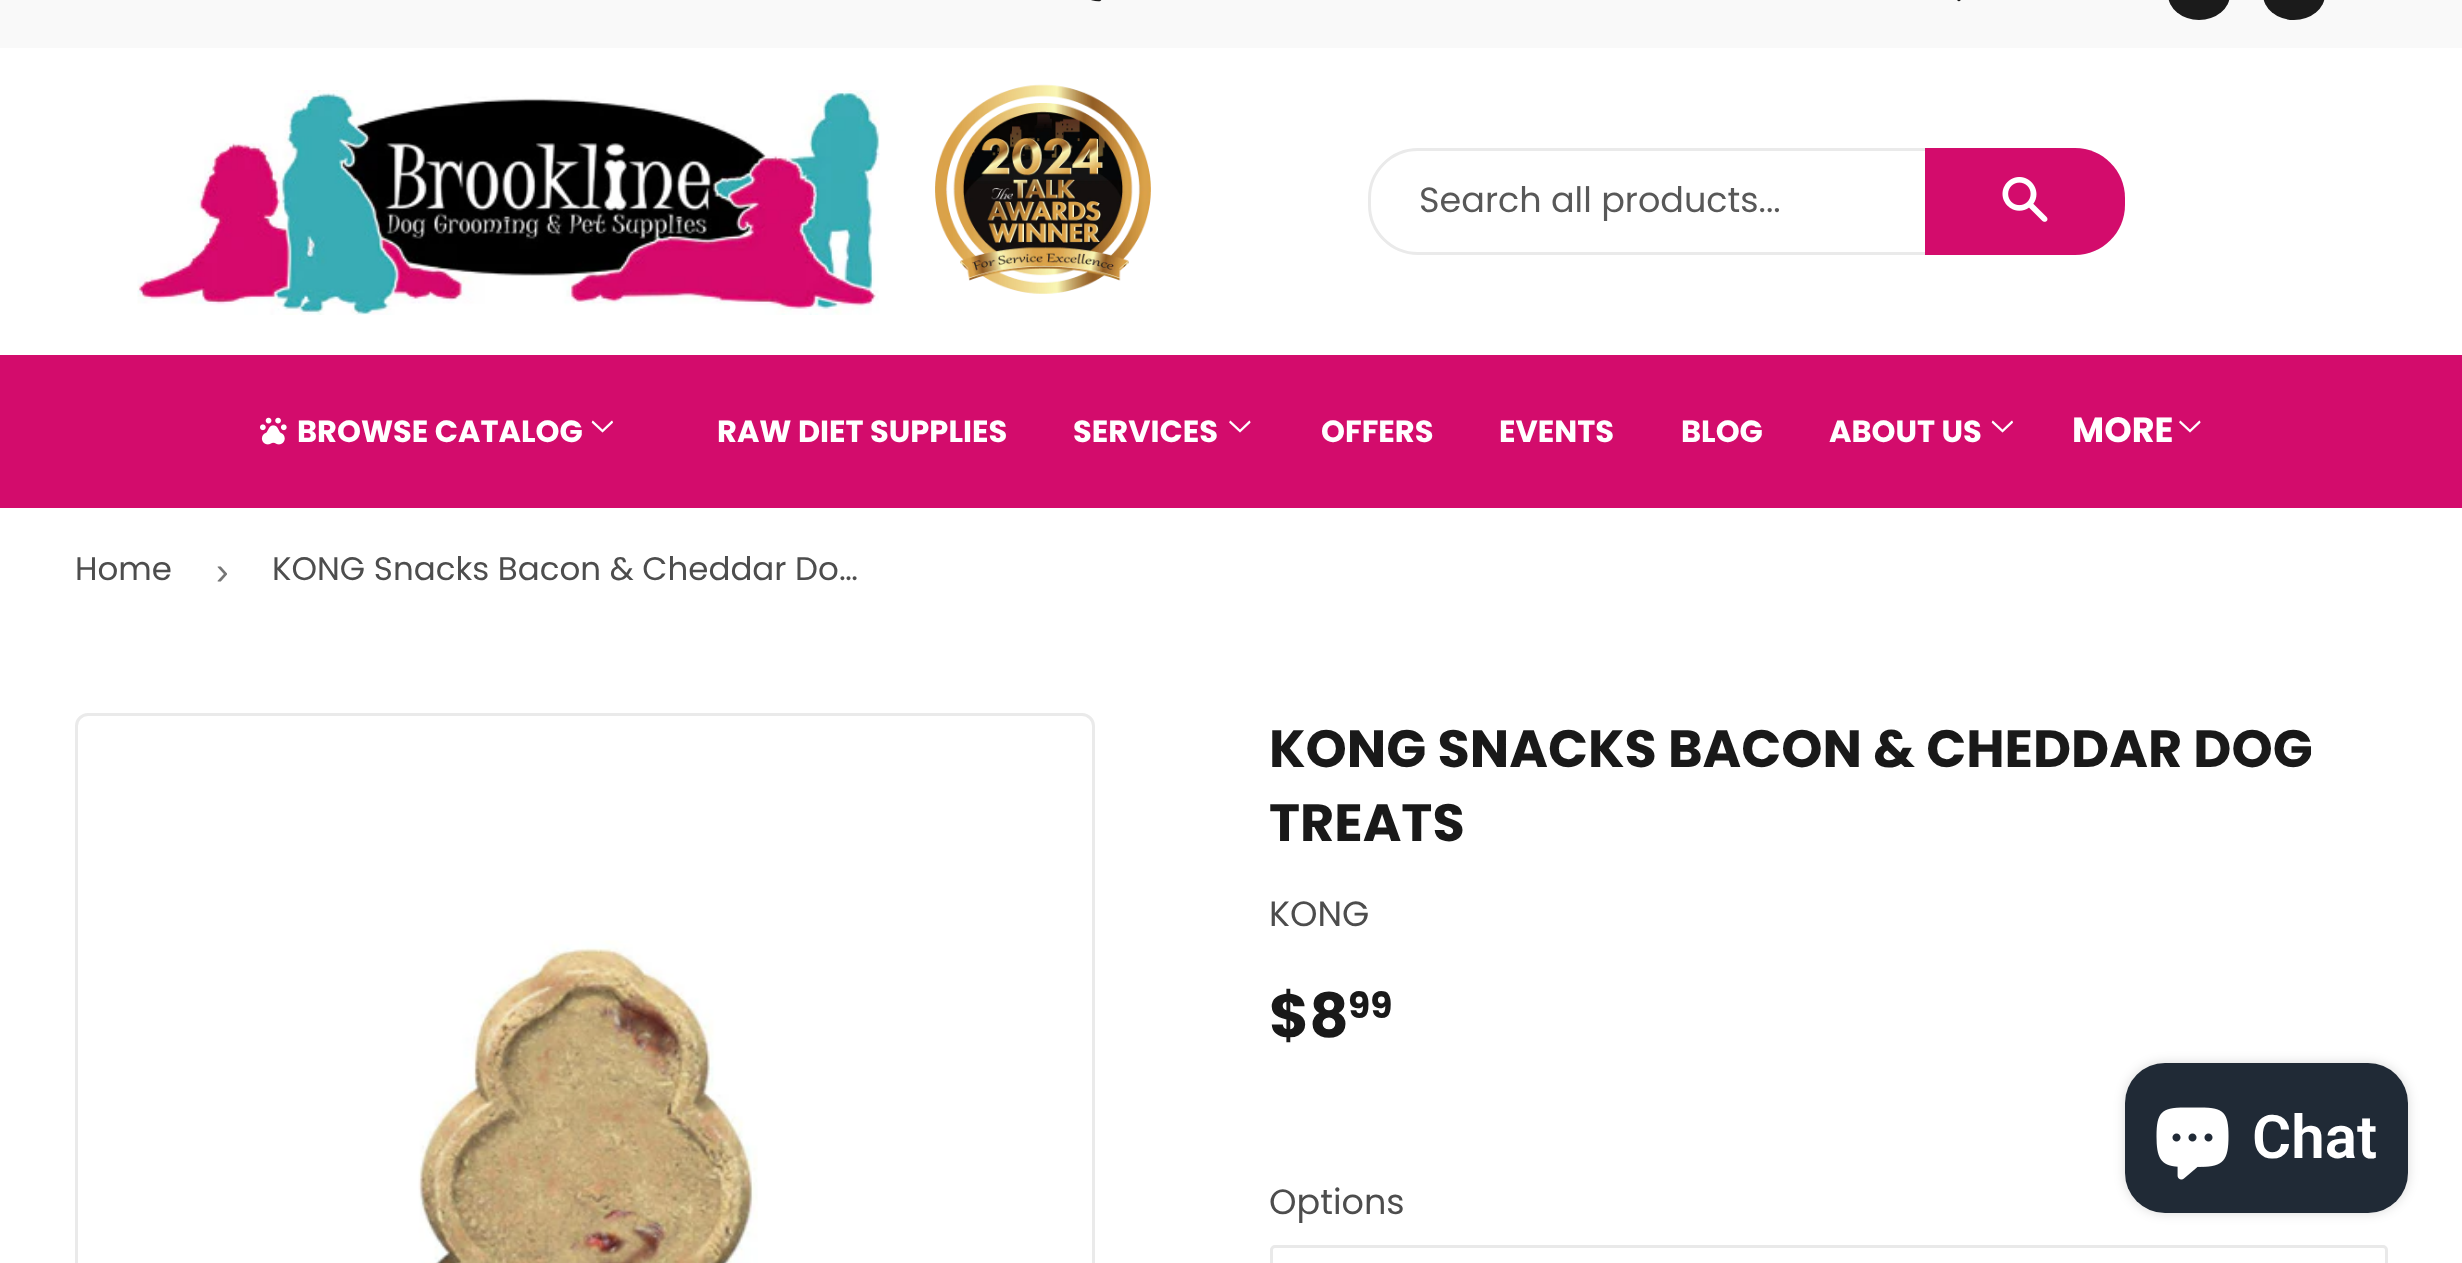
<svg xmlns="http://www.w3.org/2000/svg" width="2462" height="1263">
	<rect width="100%" height="100%" fill="#FFFFFF" />
	<rect x="0" y="0" width="2462" height="48" fill="#F9F9F9" />
	<image x="1091" y="0" width="11" height="2" href="assets/img1.png" />
	<image x="1957" y="0" width="4" height="2" href="assets/img2.png" />
	<rect x="2168" y="-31" width="62" height="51" rx="31" fill="#1B1B1B" />
	<rect x="2263" y="-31" width="62" height="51" rx="31" fill="#1B1B1B" />
	<image x="137" y="90" width="743" height="225" href="assets/img3.png" />
	<image x="935" y="84" width="216" height="210" href="assets/img4.png" />
	<rect x="1369.5" y="149.5" width="754" height="104" rx="48.5" fill="none" stroke="#EAEAEA" stroke-width="3" />
	<text x="1419" y="212" font-family="Poppins" font-size="35" fill="#585858">Search all products...</text>
	<path d="M1925 148H2075C2102.5 148 2125 170.5 2125 198V205C2125 232.5 2102.5 255 2075 255H1925Z" fill="#D30C6C" />
	<image x="2002" y="177" width="46" height="45" href="assets/img5.png" />
	<rect x="0" y="355" width="2462" height="153" fill="#D30C6C" />
	<image x="260" y="417" width="27" height="28" href="assets/img6.png" />
	<text x="297" y="442" font-family="Poppins" font-size="30.5" font-weight="700" fill="#FFFFFF">BROWSE CATALOG</text>
	<image x="591" y="420" width="22" height="13" href="assets/img7.png" />
	<g font-family="Poppins" font-size="30.5" font-weight="700" fill="#FFFFFF">
		<text x="717" y="442">RAW DIET SUPPLIES</text>
		<text x="1073" y="442">SERVICES</text>
	</g>
	<image x="1229" y="420" width="22" height="13" href="assets/img8.png" />
	<g font-family="Poppins" font-size="30.5" font-weight="700" fill="#FFFFFF">
		<text x="1321" y="442">OFFERS</text>
		<text x="1499" y="442">EVENTS</text>
		<text x="1681" y="442">BLOG</text>
		<text x="1829" y="442">ABOUT US</text>
	</g>
	<image x="1991" y="420" width="22" height="13" href="assets/img7.png" />
	<text x="2072" y="442" font-family="Poppins" font-size="35" font-weight="700" fill="#FFFFFF">MORE</text>
	<image x="2179" y="420" width="22" height="13" href="assets/img8.png" />
	<text x="75" y="580" font-family="Poppins" font-size="32.5" fill="#4D4D4D">Home</text>
	<text x="216" y="584" font-family="Liberation Sans" font-size="38" fill="#767676">›</text>
	<text x="272" y="580" font-family="Poppins" font-size="32.5" fill="#4D4D4D">KONG Snacks Bacon &amp; Cheddar Do…</text>
	<rect x="76.5" y="714.5" width="1017" height="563" rx="11.5" fill="none" stroke="#EAEAEA" stroke-width="3" />
	<image x="418" y="940" width="340" height="323" href="assets/img9.png" />
	<g font-family="Poppins" font-size="52.5" font-weight="700" fill="#191919">
		<text x="1269" y="767">KONG SNACKS BACON &amp; CHEDDAR DOG</text>
		<text x="1269" y="841">TREATS</text>
	</g>
	<text x="1269" y="926" font-family="Poppins" font-size="35" fill="#4D4D4D">KONG</text>
	<text x="1269" y="1037" font-family="Poppins" font-size="61" font-weight="700" fill="#191919">$8</text>
	<text x="1348" y="1018" font-family="Poppins" font-size="36" font-weight="700" fill="#191919">99</text>
	<text x="1269" y="1214" font-family="Poppins" font-size="35" fill="#4D4D4D">Options</text>
	<rect x="1271.5" y="1246.5" width="1115" height="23" rx="3.5" fill="none" stroke="#E9E9E9" stroke-width="3" />
	<rect x="2125" y="1063" width="283" height="150" rx="40" fill="#000000" fill-opacity="0.15" filter="blur(6px)" />
	<rect x="2125" y="1063" width="283" height="150" rx="40" fill="#202A36" />
	<image x="2156" y="1107" width="73" height="73" href="assets/img10.png" />
	<text x="2252" y="1158" font-family="Roboto" font-size="60" font-weight="600" fill="#FFFFFF">Chat</text>
</svg>
